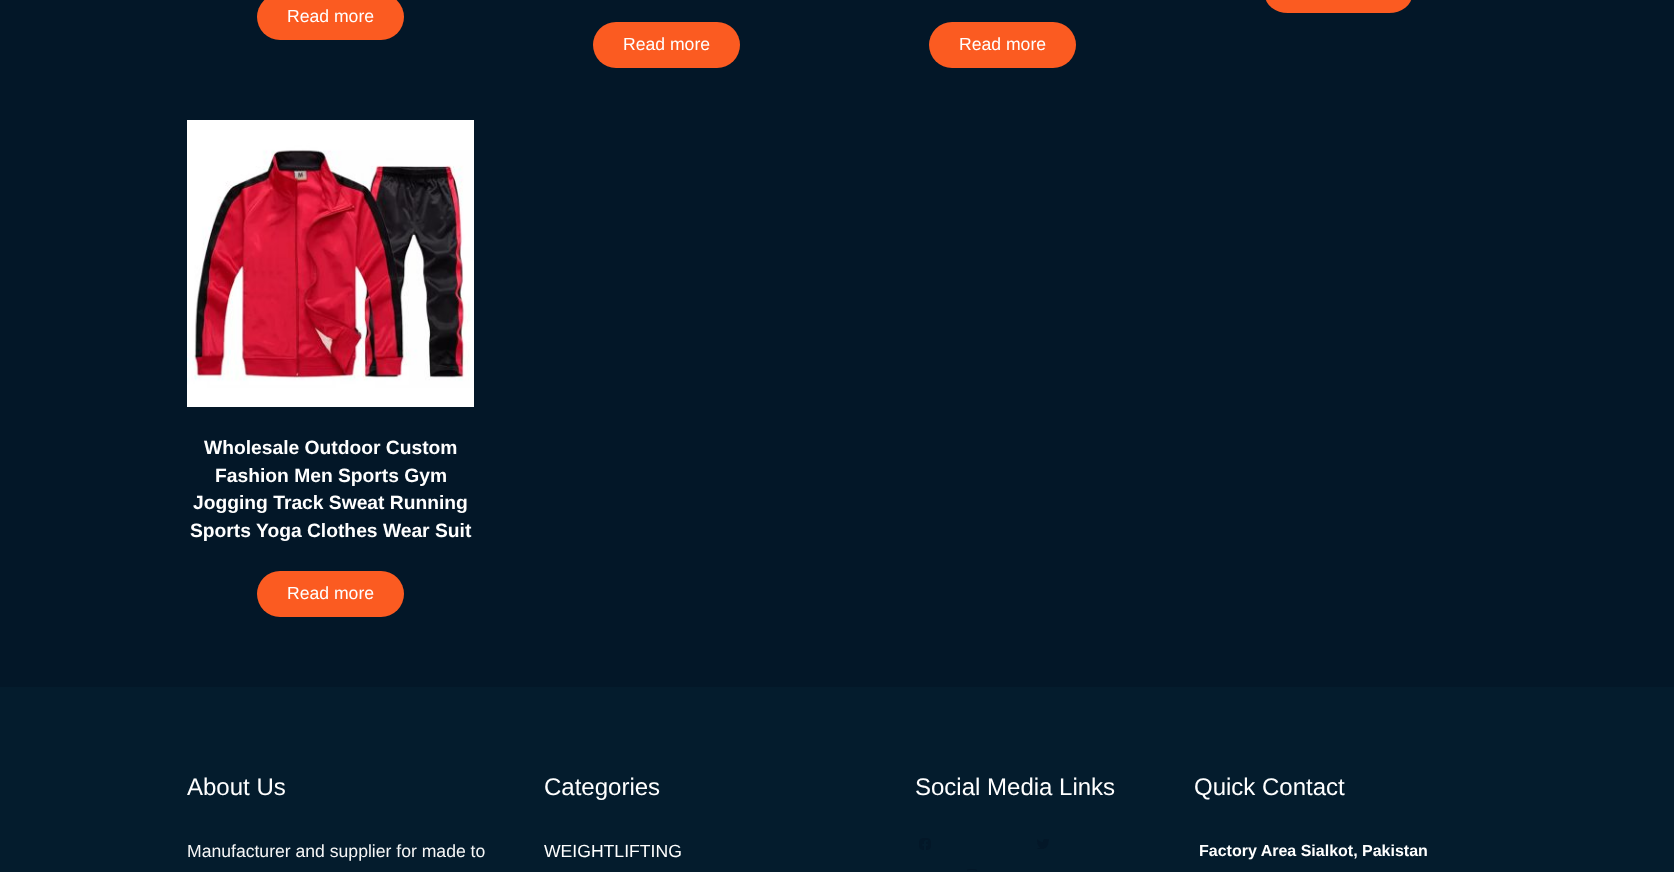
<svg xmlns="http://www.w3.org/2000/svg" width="1674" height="872">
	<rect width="100%" height="100%" fill="#031728" />
	<rect x="1265" y="-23" width="147" height="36" rx="23" fill="#FB5B21" />
	<rect x="257" y="-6" width="147" height="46" rx="23" fill="#FB5B21" />
	<text x="287" y="22" font-family="Liberation Sans" font-size="17.6" fill="#FFFFFF">Read more</text>
	<rect x="593" y="22" width="147" height="46" rx="23" fill="#FB5B21" />
	<text x="623" y="50" font-family="Liberation Sans" font-size="17.6" fill="#FFFFFF">Read more</text>
	<rect x="929" y="22" width="147" height="46" rx="23" fill="#FB5B21" />
	<text x="959" y="50" font-family="Liberation Sans" font-size="17.6" fill="#FFFFFF">Read more</text>
	<image x="187" y="120" width="287" height="287" href="assets/img1.png" />
	<g font-family="Liberation Sans" font-size="19.25" font-weight="700" fill="#FFFFFF">
		<text x="204" y="454">Wholesale Outdoor Custom</text>
		<text x="215" y="482">Fashion Men Sports Gym</text>
		<text x="193" y="509">Jogging Track Sweat Running</text>
		<text x="190" y="537">Sports Yoga Clothes Wear Suit</text>
	</g>
	<rect x="257" y="571" width="147" height="46" rx="23" fill="#FB5B21" />
	<text x="287" y="599" font-family="Liberation Sans" font-size="17.6" fill="#FFFFFF">Read more</text>
	<rect x="0" y="687" width="1674" height="185" fill="#041C2D" />
	<text x="187" y="795" font-family="Liberation Sans" font-size="24" fill="#FFFFFF">About Us</text>
	<text x="187" y="857" font-family="Liberation Sans" font-size="17.6" fill="#F7F7F7">Manufacturer and supplier for made to</text>
	<text x="544" y="795" font-family="Liberation Sans" font-size="24" fill="#FFFFFF">Categories</text>
	<text x="544" y="857" font-family="Liberation Sans" font-size="17.6" fill="#FFFFFF">WEIGHTLIFTING</text>
	<text x="915" y="795" font-family="Liberation Sans" font-size="24" fill="#FFFFFF">Social Media Links</text>
	<image x="919" y="838" width="12" height="12" href="assets/img2.png" />
	<image x="1037" y="839" width="12" height="10" href="assets/img3.png" />
	<image x="967" y="869" width="10" height="2" href="assets/img4.png" />
	<text x="1194" y="795" font-family="Liberation Sans" font-size="24" fill="#FFFFFF">Quick Contact</text>
	<text x="1199" y="856" font-family="Liberation Sans" font-size="16" font-weight="700" fill="#FFFFFF">Factory Area Sialkot, Pakistan</text>
</svg>
